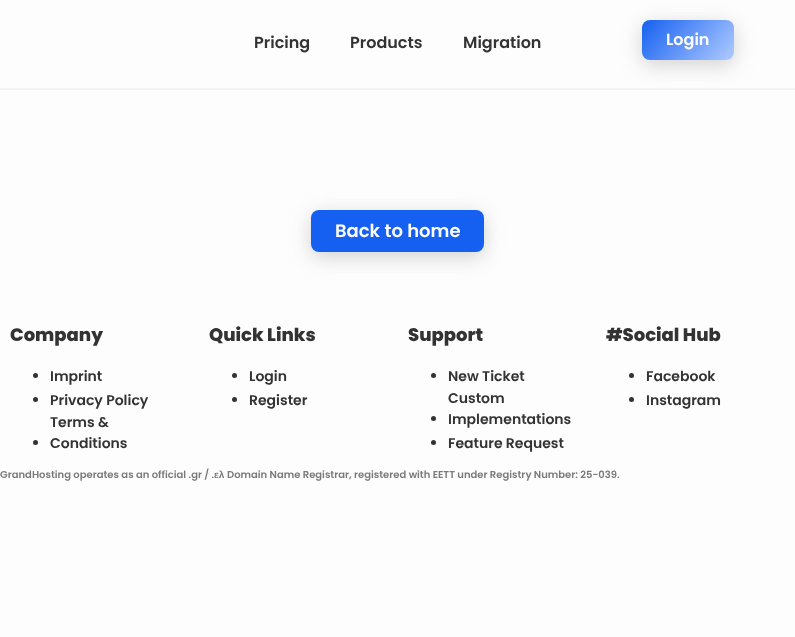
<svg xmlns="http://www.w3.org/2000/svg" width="795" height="637">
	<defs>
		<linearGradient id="g1" gradientUnits="userSpaceOnUse" x1="651" y1="9" x2="725" y2="71"><stop offset="0" stop-color="#1560F1" /><stop offset="1" stop-color="#B0CBFF" /></linearGradient>
	</defs>
	<rect width="100%" height="100%" fill="#FDFDFD" />
	<rect x="0" y="88" width="795" height="2" fill="#F3F3F3" />
	<g font-family="Poppins" font-size="16" font-weight="600" fill="#333333">
		<text x="254" y="48">Pricing</text>
		<text x="350" y="48">Products</text>
		<text x="463" y="48">Migration</text>
	</g>
	<rect x="642" y="25" width="92" height="40" rx="8" fill="#A7A7A7" fill-opacity="0.5" filter="blur(10px)" />
	<rect x="642" y="20" width="92" height="40" rx="8" fill="url(#g1)" />
	<text x="666" y="45" font-family="Poppins" font-size="16" font-weight="600" fill="#FDFDFD">Login</text>
	<rect x="311" y="215" width="173" height="42" rx="8" fill="#A7A7A7" fill-opacity="0.5" filter="blur(10px)" />
	<rect x="311" y="210" width="173" height="42" rx="8" fill="#1560F1" />
	<text x="335" y="237" font-family="Poppins" font-size="18" font-weight="600" fill="#FDFDFD">Back to home</text>
	<text x="10" y="341" font-family="Poppins" font-size="18" font-weight="800" fill="#333333">Company</text>
	<circle cx="35.5" cy="375.5" r="2.5" fill="#333333" />
	<text x="50" y="381" font-family="Poppins" font-size="14" font-weight="600" fill="#333333">Imprint</text>
	<circle cx="35.5" cy="399.5" r="2.5" fill="#333333" />
	<text x="50" y="405" font-family="Poppins" font-size="14" font-weight="600" fill="#333333">Privacy Policy</text>
	<circle cx="35.5" cy="442.5" r="2.5" fill="#333333" />
	<g font-family="Poppins" font-size="14" font-weight="600" fill="#333333">
		<text x="50" y="427">Terms &amp;</text>
		<text x="50" y="448">Conditions</text>
	</g>
	<text x="209" y="341" font-family="Poppins" font-size="18" font-weight="800" fill="#333333">Quick Links</text>
	<circle cx="234.5" cy="375.5" r="2.5" fill="#333333" />
	<text x="249" y="381" font-family="Poppins" font-size="14" font-weight="600" fill="#333333">Login</text>
	<circle cx="234.5" cy="399.5" r="2.5" fill="#333333" />
	<text x="249" y="405" font-family="Poppins" font-size="14" font-weight="600" fill="#333333">Register</text>
	<text x="408" y="341" font-family="Poppins" font-size="18" font-weight="800" fill="#333333">Support</text>
	<circle cx="433.5" cy="375.5" r="2.5" fill="#333333" />
	<text x="448" y="381" font-family="Poppins" font-size="14" font-weight="600" fill="#333333">New Ticket</text>
	<circle cx="433.5" cy="418.5" r="2.5" fill="#333333" />
	<g font-family="Poppins" font-size="14" font-weight="600" fill="#333333">
		<text x="448" y="403">Custom</text>
		<text x="448" y="424">Implementations</text>
	</g>
	<circle cx="433.5" cy="442.5" r="2.5" fill="#333333" />
	<text x="448" y="448" font-family="Poppins" font-size="14" font-weight="600" fill="#333333">Feature Request</text>
	<text x="606" y="341" font-family="Poppins" font-size="18" font-weight="800" fill="#333333">#Social Hub</text>
	<circle cx="631.5" cy="375.5" r="2.5" fill="#333333" />
	<text x="646" y="381" font-family="Poppins" font-size="14" font-weight="600" fill="#333333">Facebook</text>
	<circle cx="631.5" cy="399.5" r="2.5" fill="#333333" />
	<text x="646" y="405" font-family="Poppins" font-size="14" font-weight="600" fill="#333333">Instagram</text>
	<text x="0" y="478" font-family="Poppins" font-size="10" font-weight="600" fill="#7A7A7A">GrandHosting operates as an official .gr / .</text>
	<text x="214" y="478" font-family="Liberation Sans" font-size="10" font-weight="700" fill="#7A7A7A">ελ</text>
	<text x="227" y="478" font-family="Poppins" font-size="10" font-weight="600" fill="#7A7A7A">Domain Name Registrar, registered with EETT under Registry Number: 25-039.</text>
</svg>
